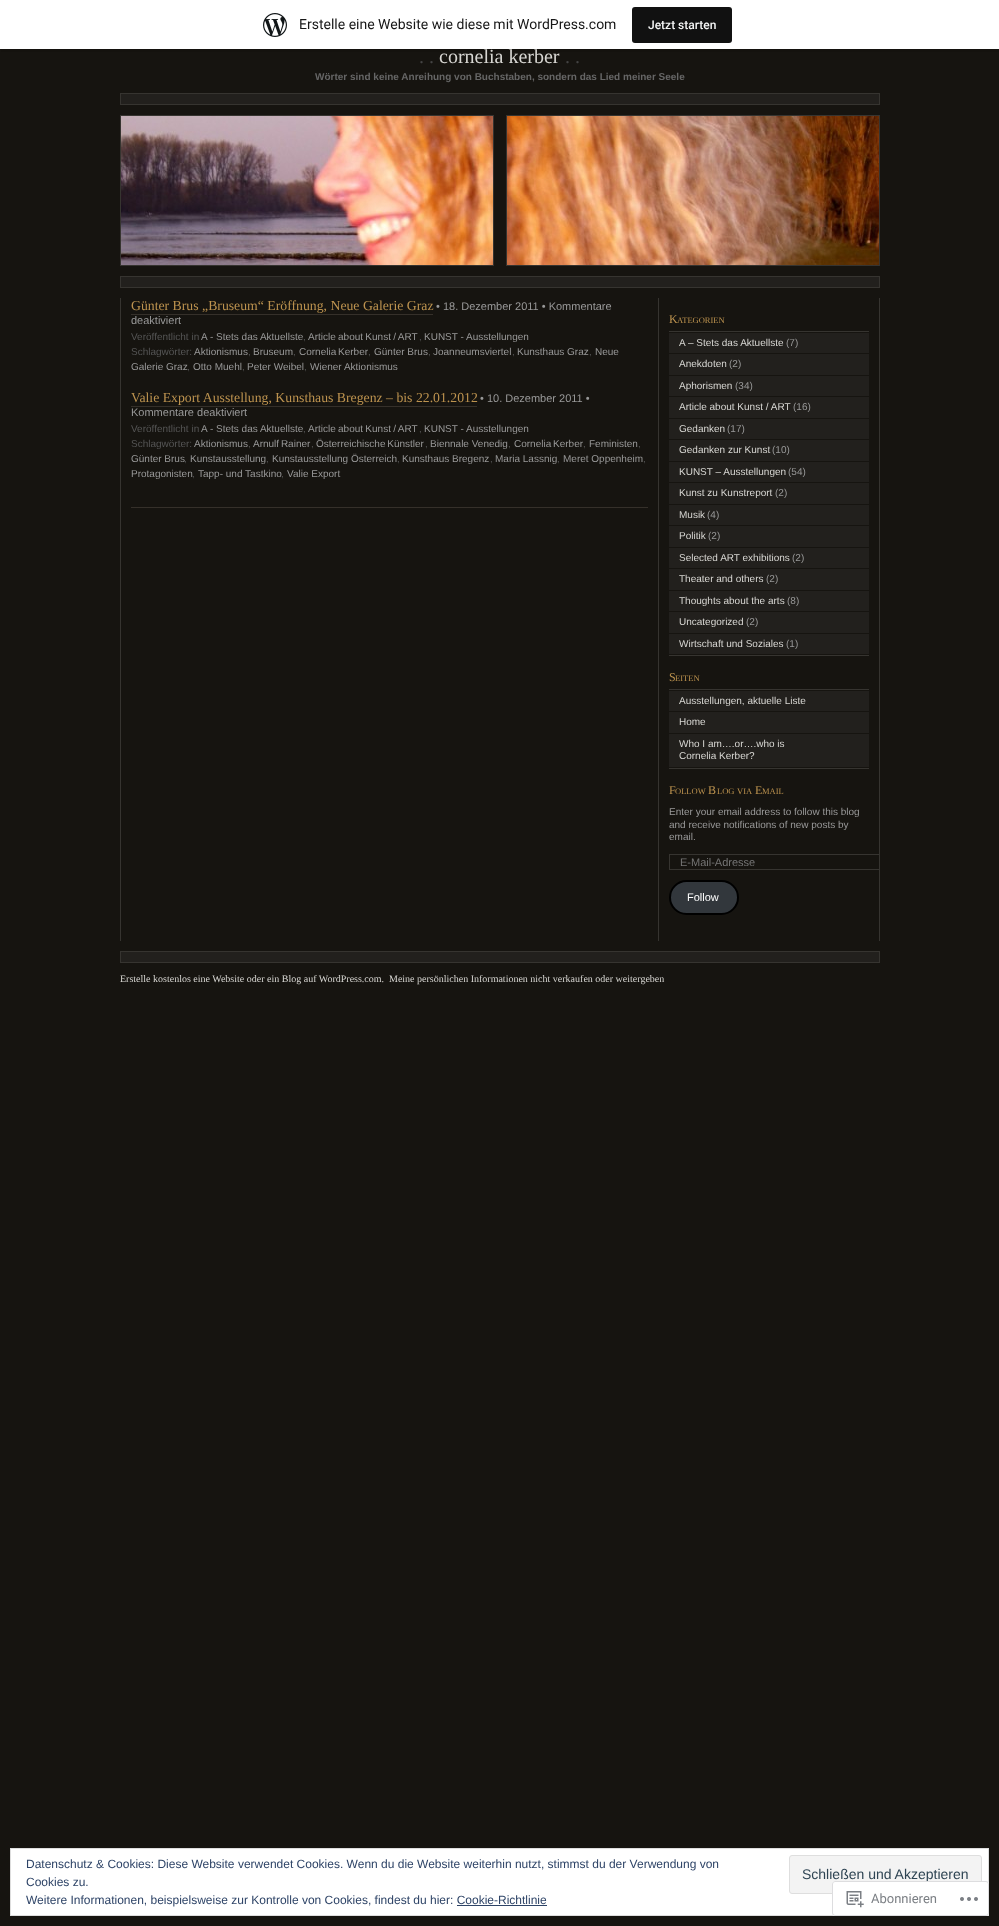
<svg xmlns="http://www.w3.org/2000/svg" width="999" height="1926">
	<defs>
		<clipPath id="clip1"><rect x="659" y="298" width="220" height="643" /></clipPath>
	</defs>
	<rect width="100%" height="100%" fill="#161410" />
	<path d="M1 49V52H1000V3H999V49Z" fill="#000000" fill-opacity="0.08" />
	<rect x="0" y="0" width="999" height="49" fill="#FFFFFF" />
	<image x="263" y="13" width="24" height="24" href="assets/img1.png" />
	<text x="299" y="29" font-family="Roboto" font-size="14" fill="#171717">Erstelle eine Website wie diese mit WordPress.com</text>
	<rect x="632" y="7" width="100" height="36" rx="3" fill="#111111" />
	<text x="648" y="29" font-family="Roboto" font-size="12" font-weight="500" fill="#F6F7F7">Jetzt starten</text>
	<text x="419" y="63" font-family="Liberation Serif" font-size="20" fill="#444444">. .</text>
	<text x="439" y="63" font-family="Liberation Serif" font-size="20" fill="#D8D7D3">cornelia kerber</text>
	<text x="565" y="63" font-family="Liberation Serif" font-size="20" fill="#444444">. .</text>
	<text x="315" y="80" font-family="Liberation Sans" font-size="10" font-weight="700" fill="#666666">Wörter sind keine Anreihung von Buchstaben, sondern das Lied meiner Seele</text>
	<rect x="120.5" y="93.5" width="759" height="11" fill="#22201D" stroke="#363430" />
	<image x="121" y="116" width="758" height="149" href="assets/img3.png" />
	<image x="120" y="115" width="760" height="151" href="assets/img2.png" />
	<rect x="120.5" y="276.5" width="759" height="11" fill="#22201D" stroke="#363430" />
	<image x="120" y="298" width="760" height="643" href="assets/img4.png" />
	<text x="131" y="310" font-family="Liberation Serif" font-size="13.75" fill="#BD934F">Günter Brus „Bruseum“ Eröffnung, Neue Galerie Graz</text>
	<rect x="131" y="314" width="302" height="1" fill="#35302A" />
	<g font-family="Liberation Sans" font-size="11" fill="#999999">
		<text x="436" y="310">• 18. Dezember 2011 • Kommentare</text>
		<text x="131" y="324">deaktiviert</text>
	</g>
	<text x="131" y="340" font-family="Liberation Sans" font-size="10" fill="#555555">Veröffentlicht in</text>
	<text x="201" y="340" font-family="Liberation Sans" font-size="10" fill="#999999">A - Stets das Aktuellste</text>
	<text x="303" y="340" font-family="Liberation Sans" font-size="10" fill="#555555">,</text>
	<text x="308" y="340" word-spacing="-0.5" font-family="Liberation Sans" font-size="10" fill="#999999">Article about Kunst / ART</text>
	<text x="419" y="340" font-family="Liberation Sans" font-size="10" fill="#555555">,</text>
	<text x="424" y="340" font-family="Liberation Sans" font-size="10" fill="#999999">KUNST - Ausstellungen</text>
	<text x="131" y="355" font-family="Liberation Sans" font-size="10" fill="#555555">Schlagwörter:</text>
	<text x="194" y="355" font-family="Liberation Sans" font-size="10" fill="#999999">Aktionismus</text>
	<text x="248" y="355" font-family="Liberation Sans" font-size="10" fill="#555555">,</text>
	<text x="253" y="355" font-family="Liberation Sans" font-size="10" fill="#999999">Bruseum</text>
	<text x="293" y="355" font-family="Liberation Sans" font-size="10" fill="#555555">,</text>
	<text x="299" y="355" word-spacing="-1" font-family="Liberation Sans" font-size="10" fill="#999999">Cornelia Kerber</text>
	<text x="368" y="355" font-family="Liberation Sans" font-size="10" fill="#555555">,</text>
	<text x="374" y="355" font-family="Liberation Sans" font-size="10" fill="#999999">Günter Brus</text>
	<text x="428" y="355" font-family="Liberation Sans" font-size="10" fill="#555555">,</text>
	<text x="433" y="355" font-family="Liberation Sans" font-size="10" fill="#999999">Joanneumsviertel</text>
	<text x="512" y="355" font-family="Liberation Sans" font-size="10" fill="#555555">,</text>
	<text x="517" y="355" font-family="Liberation Sans" font-size="10" fill="#999999">Kunsthaus Graz</text>
	<text x="589" y="355" font-family="Liberation Sans" font-size="10" fill="#555555">,</text>
	<g font-family="Liberation Sans" font-size="10" fill="#999999">
		<text x="595" y="355">Neue</text>
		<text x="131" y="370">Galerie Graz</text>
	</g>
	<text x="187" y="370" font-family="Liberation Sans" font-size="10" fill="#555555">,</text>
	<text x="193" y="370" font-family="Liberation Sans" font-size="10" fill="#999999">Otto Muehl</text>
	<text x="242" y="370" font-family="Liberation Sans" font-size="10" fill="#555555">,</text>
	<text x="247" y="370" font-family="Liberation Sans" font-size="10" fill="#999999">Peter Weibel</text>
	<text x="304" y="370" font-family="Liberation Sans" font-size="10" fill="#555555">,</text>
	<text x="310" y="370" font-family="Liberation Sans" font-size="10" fill="#999999">Wiener Aktionismus</text>
	<text x="131" y="402" font-family="Liberation Serif" font-size="13.75" fill="#BD934F">Valie Export Ausstellung, Kunsthaus Bregenz – bis 22.01.2012</text>
	<rect x="131" y="406" width="346" height="1" fill="#35302A" />
	<g font-family="Liberation Sans" font-size="11" fill="#999999">
		<text x="480" y="402">• 10. Dezember 2011 •</text>
		<text x="131" y="416">Kommentare deaktiviert</text>
	</g>
	<text x="131" y="432" font-family="Liberation Sans" font-size="10" fill="#555555">Veröffentlicht in</text>
	<text x="201" y="432" font-family="Liberation Sans" font-size="10" fill="#999999">A - Stets das Aktuellste</text>
	<text x="303" y="432" font-family="Liberation Sans" font-size="10" fill="#555555">,</text>
	<text x="308" y="432" word-spacing="-0.5" font-family="Liberation Sans" font-size="10" fill="#999999">Article about Kunst / ART</text>
	<text x="419" y="432" font-family="Liberation Sans" font-size="10" fill="#555555">,</text>
	<text x="424" y="432" font-family="Liberation Sans" font-size="10" fill="#999999">KUNST - Ausstellungen</text>
	<text x="131" y="447" font-family="Liberation Sans" font-size="10" fill="#555555">Schlagwörter:</text>
	<text x="194" y="447" font-family="Liberation Sans" font-size="10" fill="#999999">Aktionismus</text>
	<text x="248" y="447" font-family="Liberation Sans" font-size="10" fill="#555555">,</text>
	<text x="253" y="447" word-spacing="-1" font-family="Liberation Sans" font-size="10" fill="#999999">Arnulf Rainer</text>
	<text x="311" y="447" font-family="Liberation Sans" font-size="10" fill="#555555">,</text>
	<text x="316" y="447" word-spacing="-1" font-family="Liberation Sans" font-size="10" fill="#999999">Österreichische Künstler</text>
	<text x="425" y="447" font-family="Liberation Sans" font-size="10" fill="#555555">,</text>
	<text x="430" y="447" font-family="Liberation Sans" font-size="10" fill="#999999">Biennale Venedig</text>
	<text x="508" y="447" font-family="Liberation Sans" font-size="10" fill="#555555">,</text>
	<text x="514" y="447" word-spacing="-1" font-family="Liberation Sans" font-size="10" fill="#999999">Cornelia Kerber</text>
	<text x="583" y="447" font-family="Liberation Sans" font-size="10" fill="#555555">,</text>
	<text x="589" y="447" font-family="Liberation Sans" font-size="10" fill="#999999">Feministen</text>
	<text x="638" y="447" font-family="Liberation Sans" font-size="10" fill="#555555">,</text>
	<text x="131" y="462" font-family="Liberation Sans" font-size="10" fill="#999999">Günter Brus</text>
	<text x="184" y="462" font-family="Liberation Sans" font-size="10" fill="#555555">,</text>
	<text x="190" y="462" font-family="Liberation Sans" font-size="10" fill="#999999">Kunstausstellung</text>
	<text x="266" y="462" font-family="Liberation Sans" font-size="10" fill="#555555">,</text>
	<text x="272" y="462" font-family="Liberation Sans" font-size="10" fill="#999999">Kunstausstellung Österreich</text>
	<text x="397" y="462" font-family="Liberation Sans" font-size="10" fill="#555555">,</text>
	<text x="402" y="462" font-family="Liberation Sans" font-size="10" fill="#999999">Kunsthaus Bregenz</text>
	<text x="490" y="462" font-family="Liberation Sans" font-size="10" fill="#555555">,</text>
	<text x="495" y="462" font-family="Liberation Sans" font-size="10" fill="#999999">Maria Lassnig</text>
	<text x="557" y="462" font-family="Liberation Sans" font-size="10" fill="#555555">,</text>
	<text x="563" y="462" font-family="Liberation Sans" font-size="10" fill="#999999">Meret Oppenheim</text>
	<text x="643" y="462" font-family="Liberation Sans" font-size="10" fill="#555555">,</text>
	<text x="131" y="477" font-family="Liberation Sans" font-size="10" fill="#999999">Protagonisten</text>
	<text x="192" y="477" font-family="Liberation Sans" font-size="10" fill="#555555">,</text>
	<text x="198" y="477" font-family="Liberation Sans" font-size="10" fill="#999999">Tapp- und Tastkino</text>
	<text x="281" y="477" font-family="Liberation Sans" font-size="10" fill="#555555">,</text>
	<text x="287" y="477" font-family="Liberation Sans" font-size="10" fill="#999999">Valie Export</text>
	<rect x="131" y="507" width="517" height="1" fill="#35302A" />
	<text x="669" y="323" font-family="Liberation Serif" font-size="12" fill="#BD934F">K</text>
	<text x="677" y="323" font-family="Liberation Serif" font-size="8.5" fill="#BD934F">ATEGORIEN</text>
	<rect x="669" y="331" width="200" height="1" fill="#363430" />
	<rect x="669" y="655" width="200" height="1" fill="#363430" />
	<rect x="669" y="333" width="200" height="20" fill="#22201D" />
	<text x="679" y="346" font-family="Liberation Sans" font-size="10" fill="#D8D7D3">A – Stets das Aktuellste</text>
	<text x="786" y="346" font-family="Liberation Sans" font-size="10" fill="#999999">(7)</text>
	<rect x="669" y="354" width="200" height="21" fill="#22201D" />
	<text x="679" y="367" font-family="Liberation Sans" font-size="10" fill="#D8D7D3">Anekdoten</text>
	<text x="729" y="367" font-family="Liberation Sans" font-size="10" fill="#999999">(2)</text>
	<rect x="669" y="376" width="200" height="20" fill="#22201D" />
	<text x="679" y="389" font-family="Liberation Sans" font-size="10" fill="#D8D7D3">Aphorismen</text>
	<text x="735" y="389" font-family="Liberation Sans" font-size="10" fill="#999999">(34)</text>
	<rect x="669" y="397" width="200" height="21" fill="#22201D" />
	<text x="679" y="410" font-family="Liberation Sans" font-size="10" fill="#D8D7D3">Article about Kunst / ART</text>
	<text x="793" y="410" font-family="Liberation Sans" font-size="10" fill="#999999">(16)</text>
	<rect x="669" y="419" width="200" height="20" fill="#22201D" />
	<text x="679" y="432" font-family="Liberation Sans" font-size="10" fill="#D8D7D3">Gedanken</text>
	<text x="727" y="432" font-family="Liberation Sans" font-size="10" fill="#999999">(17)</text>
	<rect x="669" y="440" width="200" height="21" fill="#22201D" />
	<text x="679" y="453" font-family="Liberation Sans" font-size="10" fill="#D8D7D3">Gedanken zur Kunst</text>
	<text x="772" y="453" font-family="Liberation Sans" font-size="10" fill="#999999">(10)</text>
	<rect x="669" y="462" width="200" height="20" fill="#22201D" />
	<text x="679" y="475" font-family="Liberation Sans" font-size="10" fill="#D8D7D3">KUNST – Ausstellungen</text>
	<text x="788" y="475" font-family="Liberation Sans" font-size="10" fill="#999999">(54)</text>
	<rect x="669" y="483" width="200" height="21" fill="#22201D" />
	<text x="679" y="496" font-family="Liberation Sans" font-size="10" fill="#D8D7D3">Kunst zu Kunstreport</text>
	<text x="775" y="496" font-family="Liberation Sans" font-size="10" fill="#999999">(2)</text>
	<rect x="669" y="505" width="200" height="20" fill="#22201D" />
	<text x="679" y="518" font-family="Liberation Sans" font-size="10" fill="#D8D7D3">Musik</text>
	<text x="707" y="518" font-family="Liberation Sans" font-size="10" fill="#999999">(4)</text>
	<rect x="669" y="526" width="200" height="21" fill="#22201D" />
	<text x="679" y="539" font-family="Liberation Sans" font-size="10" fill="#D8D7D3">Politik</text>
	<text x="708" y="539" font-family="Liberation Sans" font-size="10" fill="#999999">(2)</text>
	<rect x="669" y="548" width="200" height="20" fill="#22201D" />
	<text x="679" y="561" font-family="Liberation Sans" font-size="10" fill="#D8D7D3">Selected ART exhibitions</text>
	<text x="792" y="561" font-family="Liberation Sans" font-size="10" fill="#999999">(2)</text>
	<rect x="669" y="569" width="200" height="21" fill="#22201D" />
	<text x="679" y="582" font-family="Liberation Sans" font-size="10" fill="#D8D7D3">Theater and others</text>
	<text x="766" y="582" font-family="Liberation Sans" font-size="10" fill="#999999">(2)</text>
	<rect x="669" y="591" width="200" height="20" fill="#22201D" />
	<text x="679" y="604" font-family="Liberation Sans" font-size="10" fill="#D8D7D3">Thoughts about the arts</text>
	<text x="787" y="604" font-family="Liberation Sans" font-size="10" fill="#999999">(8)</text>
	<rect x="669" y="612" width="200" height="21" fill="#22201D" />
	<text x="679" y="625" font-family="Liberation Sans" font-size="10" fill="#D8D7D3">Uncategorized</text>
	<text x="746" y="625" font-family="Liberation Sans" font-size="10" fill="#999999">(2)</text>
	<rect x="669" y="634" width="200" height="20" fill="#22201D" />
	<text x="679" y="647" font-family="Liberation Sans" font-size="10" fill="#D8D7D3">Wirtschaft und Soziales</text>
	<text x="786" y="647" font-family="Liberation Sans" font-size="10" fill="#999999">(1)</text>
	<text x="669" y="681" font-family="Liberation Serif" font-size="12" fill="#BD934F">S</text>
	<text x="675" y="681" font-family="Liberation Serif" font-size="8.5" fill="#BD934F">EITEN</text>
	<rect x="669" y="689" width="200" height="1" fill="#363430" />
	<rect x="669" y="768" width="200" height="1" fill="#363430" />
	<rect x="669" y="691" width="200" height="20" fill="#22201D" />
	<text x="679" y="704" font-family="Liberation Sans" font-size="10" fill="#D8D7D3">Ausstellungen, aktuelle Liste</text>
	<rect x="669" y="712" width="200" height="21" fill="#22201D" />
	<text x="679" y="725" font-family="Liberation Sans" font-size="10" fill="#D8D7D3">Home</text>
	<rect x="669" y="734" width="200" height="33" fill="#22201D" />
	<g font-family="Liberation Sans" font-size="10" fill="#D8D7D3">
		<text x="679" y="747">Who I am….or….who is</text>
		<text x="679" y="759">Cornelia Kerber?</text>
	</g>
	<text x="669" y="794" font-family="Liberation Serif" font-size="12" fill="#BD934F">F</text>
	<text x="675" y="794" font-family="Liberation Serif" font-size="8.5" fill="#BD934F">OLLOW</text>
	<text x="708" y="794" font-family="Liberation Serif" font-size="12" fill="#BD934F">B</text>
	<g font-family="Liberation Serif" font-size="8.5" fill="#BD934F">
		<text x="717" y="794">LOG</text>
		<text x="737" y="794">VIA</text>
	</g>
	<text x="755" y="794" font-family="Liberation Serif" font-size="12" fill="#BD934F">E</text>
	<text x="762" y="794" font-family="Liberation Serif" font-size="8.5" fill="#BD934F">MAIL</text>
	<g font-family="Liberation Sans" font-size="10" fill="#999999">
		<text x="669" y="815">Enter your email address to follow this blog</text>
		<text x="669" y="828">and receive notifications of new posts by</text>
		<text x="669" y="840">email.</text>
	</g>
	<g clip-path="url(#clip1)">
		<rect x="669.5" y="854.5" width="211" height="15" fill="none" stroke="#363430" />
	</g>
	<text x="680" y="866" font-family="Liberation Sans" font-size="11" fill="#757575">E-Mail-Adresse</text>
	<rect x="670" y="881" width="68" height="33" rx="16.5" fill="#32373C" stroke="#000000" stroke-width="2" />
	<text x="687" y="901" font-family="Liberation Sans" font-size="11" fill="#FFFFFF">Follow</text>
	<rect x="120.5" y="951.5" width="759" height="11" fill="#22201D" stroke="#363430" />
	<g font-family="Liberation Serif" font-size="10" fill="#D8D7D3">
		<text x="120" y="982">Erstelle kostenlos eine Website oder ein Blog auf WordPress.com.</text>
		<text x="389" y="982">Meine persönlichen Informationen nicht verkaufen oder weitergeben</text>
	</g>
	<rect x="10.5" y="1848.5" width="978" height="67" fill="#FFFFFF" stroke="#DEDEDE" />
	<g font-family="Liberation Sans" font-size="12" fill="#2E4467">
		<text x="26" y="1868">Datenschutz &amp; Cookies: Diese Website verwendet Cookies. Wenn du die Website weiterhin nutzt, stimmst du der Verwendung von</text>
		<text x="26" y="1886">Cookies zu.</text>
	</g>
	<rect x="789.5" y="1855.5" width="192" height="38" rx="2.5" fill="#F3F3F3" stroke="#DEDEDE" />
	<text x="802" y="1879" font-family="Liberation Sans" font-size="14" fill="#2E4453">Schließen und Akzeptieren</text>
	<text x="26" y="1904" font-family="Liberation Sans" font-size="12" fill="#2E4467">Weitere Informationen, beispielsweise zur Kontrolle von Cookies, findest du hier: Cookie-Richtlinie</text>
	<rect x="457" y="1905" width="90" height="1" fill="#2E4467" />
	<rect x="832" y="1881" width="157" height="35" rx="3" fill="#FFFFFF" fill-opacity="0.98" />
	<rect x="832.5" y="1881.5" width="156" height="34" rx="2.5" fill="none" stroke="#DCDCDE" stroke-opacity="0.98" />
	<image x="846" y="1891" width="18" height="17" href="assets/img5.png" />
	<text x="871" y="1903" font-family="Roboto" font-size="13" fill="#7B7F84">Abonnieren</text>
	<image x="960" y="1897" width="18" height="4" href="assets/img6.png" />
</svg>
